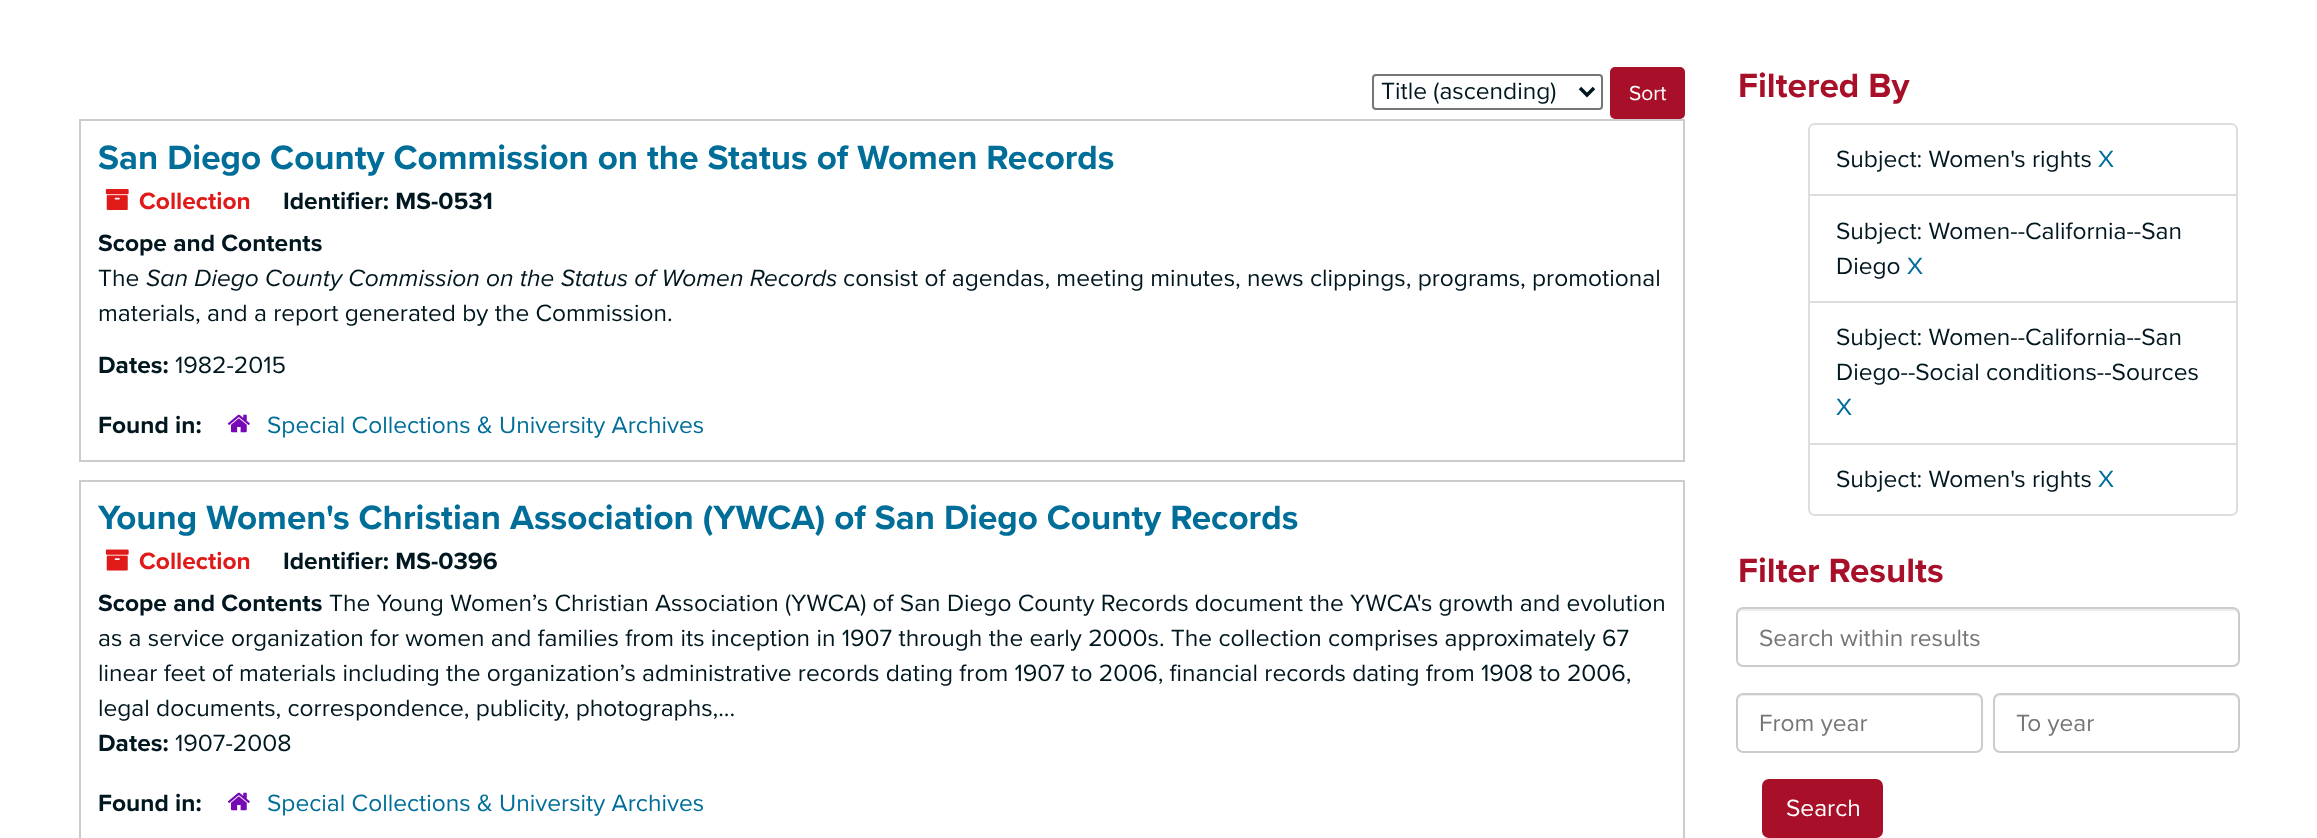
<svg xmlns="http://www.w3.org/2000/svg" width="2317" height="838">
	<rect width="100%" height="100%" fill="#FFFFFF" />
	<rect x="1373" y="75" width="229" height="34" rx="3" fill="none" stroke="#767676" stroke-width="2" />
	<path d="M1580 88L1587 95L1594 88" fill="none" stroke="#00171F" stroke-width="3.5" />
	<text x="1381" y="99" font-family="Proxima Nova" font-size="24.5" fill="#00171F">Title (ascending)</text>
	<rect x="1611" y="68" width="73" height="50" rx="4" fill="#A81029" stroke="#A81029" stroke-width="2" />
	<text x="1629" y="100" font-family="Proxima Nova" font-size="21" fill="#FFFFFF">Sort</text>
	<rect x="80" y="120" width="1604" height="341" fill="none" stroke="#CCCCCC" stroke-width="2" />
	<text x="98" y="169" font-family="Proxima Nova" font-size="35" font-weight="700" fill="#006E99">San Diego County Commission on the Status of Women Records</text>
	<image x="105" y="189" width="24" height="21" href="assets/img1.png" />
	<text x="139" y="209" font-family="Proxima Nova" font-size="24.5" font-weight="700" fill="#E01919">Collection</text>
	<g font-family="Proxima Nova" font-size="24.5" font-weight="700" fill="#00171F">
		<text x="283" y="209">Identifier: MS-0531</text>
		<text x="98" y="251">Scope and Contents</text>
	</g>
	<text x="98" y="286" font-family="Proxima Nova" font-size="24.5" fill="#00171F">The</text>
	<text x="146" y="286" font-family="Proxima Nova" font-size="24.5" font-style="italic" fill="#00171F">San Diego County Commission on the Status of Women Records</text>
	<g font-family="Proxima Nova" font-size="24.5" fill="#00171F">
		<text x="843" y="286">consist of agendas, meeting minutes, news clippings, programs, promotional</text>
		<text x="98" y="321">materials, and a report generated by the Commission.</text>
	</g>
	<text x="98" y="373" font-family="Proxima Nova" font-size="24.5" font-weight="700" fill="#00171F">Dates:</text>
	<text x="175" y="373" font-family="Proxima Nova" font-size="24.5" fill="#00171F">1982-2015</text>
	<text x="98" y="433" font-family="Proxima Nova" font-size="24.5" font-weight="700" fill="#00171F">Found in:</text>
	<image x="227" y="414" width="23" height="19" href="assets/img2.png" />
	<text x="267" y="433" font-family="Proxima Nova" font-size="24.5" fill="#006E99">Special Collections &amp; University Archives</text>
	<rect x="80" y="481" width="1604" height="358" fill="none" stroke="#CCCCCC" stroke-width="2" />
	<text x="98" y="529" font-family="Proxima Nova" font-size="35" font-weight="700" fill="#006E99">Young Women's Christian Association (YWCA) of San Diego County Records</text>
	<image x="105" y="549" width="24" height="22" href="assets/img3.png" />
	<text x="139" y="569" font-family="Proxima Nova" font-size="24.5" font-weight="700" fill="#E01919">Collection</text>
	<g font-family="Proxima Nova" font-size="24.5" font-weight="700" fill="#00171F">
		<text x="283" y="569">Identifier: MS-0396</text>
		<text x="98" y="611">Scope and Contents</text>
	</g>
	<g font-family="Proxima Nova" font-size="24.5" fill="#00171F">
		<text x="329" y="611">The Young Women’s Christian Association (YWCA) of San Diego County Records document the YWCA's growth and evolution</text>
		<text x="98" y="646">as a service organization for women and families from its inception in 1907 through the early 2000s. The collection comprises approximately 67</text>
		<text x="98" y="681">linear feet of materials including the organization’s administrative records dating from 1907 to 2006, financial records dating from 1908 to 2006,</text>
		<text x="98" y="716">legal documents, correspondence, publicity, photographs,...</text>
	</g>
	<text x="98" y="751" font-family="Proxima Nova" font-size="24.5" font-weight="700" fill="#00171F">Dates:</text>
	<text x="175" y="751" font-family="Proxima Nova" font-size="24.5" fill="#00171F">1907-2008</text>
	<text x="98" y="811" font-family="Proxima Nova" font-size="24.5" font-weight="700" fill="#00171F">Found in:</text>
	<image x="227" y="792" width="23" height="19" href="assets/img2.png" />
	<text x="267" y="811" font-family="Proxima Nova" font-size="24.5" fill="#006E99">Special Collections &amp; University Archives</text>
	<text x="1738" y="97" font-family="Proxima Nova" font-size="35" font-weight="700" fill="#A81029">Filtered By</text>
	<path d="M1815 124H2231C2234.5 124 2237 126.5 2237 130V195H1809V130C1809 126.5 1811.5 124 1815 124Z" fill="none" stroke="#DDDDDD" stroke-width="2" />
	<text x="1836" y="167" font-family="Proxima Nova" font-size="24.5" fill="#00171F">Subject: Women's rights</text>
	<text x="2098" y="167" font-family="Proxima Nova" font-size="24.5" fill="#006E99">X</text>
	<rect x="1809" y="195" width="428" height="107" fill="none" stroke="#DDDDDD" stroke-width="2" />
	<g font-family="Proxima Nova" font-size="24.5" fill="#00171F">
		<text x="1836" y="239">Subject: Women--California--San</text>
		<text x="1836" y="274">Diego</text>
	</g>
	<text x="1907" y="274" font-family="Proxima Nova" font-size="24.5" fill="#006E99">X</text>
	<rect x="1809" y="302" width="428" height="142" fill="none" stroke="#DDDDDD" stroke-width="2" />
	<g font-family="Proxima Nova" font-size="24.5" fill="#00171F">
		<text x="1836" y="345">Subject: Women--California--San</text>
		<text x="1836" y="380">Diego--Social conditions--Sources</text>
	</g>
	<text x="1836" y="415" font-family="Proxima Nova" font-size="24.5" fill="#006E99">X</text>
	<path d="M1809 444H2237V509C2237 512.5 2234.5 515 2231 515H1815C1811.5 515 1809 512.5 1809 509Z" fill="#FFFFFF" stroke="#DDDDDD" stroke-width="2" />
	<text x="1836" y="487" font-family="Proxima Nova" font-size="24.5" fill="#00171F">Subject: Women's rights</text>
	<text x="2098" y="487" font-family="Proxima Nova" font-size="24.5" fill="#006E99">X</text>
	<text x="1738" y="582" font-family="Proxima Nova" font-size="35" font-weight="700" fill="#A81029">Filter Results</text>
	<path d="M1743 611H2233C2236 611 2238 613 2238 616V614C2238 611 2236 609 2233 609H1743C1740 609 1738 611 1738 614V616C1738 613 1740 611 1743 611Z" fill="#ECECEC" />
	<rect x="1737" y="608" width="502" height="58" rx="6" fill="none" stroke="#CCCCCC" stroke-width="2" />
	<text x="1759" y="646" font-family="Proxima Nova" font-size="24.5" fill="#767676">Search within results</text>
	<path d="M1743 696H1976C1979 696 1981 699 1981 702C1981 699 1981 696 1977 695H1742C1738 696 1738 699 1738 702C1738 699 1740 696 1743 696Z" fill="#ECECEC" />
	<rect x="1737" y="694" width="245" height="58" rx="6" fill="none" stroke="#CCCCCC" stroke-width="2" />
	<text x="1759" y="731" font-family="Proxima Nova" font-size="24.5" fill="#767676">From year</text>
	<path d="M2000 696H2233C2236 696 2238 699 2238 702C2238 699 2238 696 2234 695H1999C1995 696 1995 699 1995 702C1995 699 1997 696 2000 696Z" fill="#ECECEC" />
	<rect x="1994" y="694" width="245" height="58" rx="6" fill="none" stroke="#CCCCCC" stroke-width="2" />
	<text x="2016" y="731" font-family="Proxima Nova" font-size="24.5" fill="#767676">To year</text>
	<rect x="1763" y="780" width="119" height="57" rx="6" fill="#A81029" stroke="#A81029" stroke-width="2" />
	<text x="1786" y="816" font-family="Proxima Nova" font-size="24.5" fill="#FFFFFF">Search</text>
</svg>
